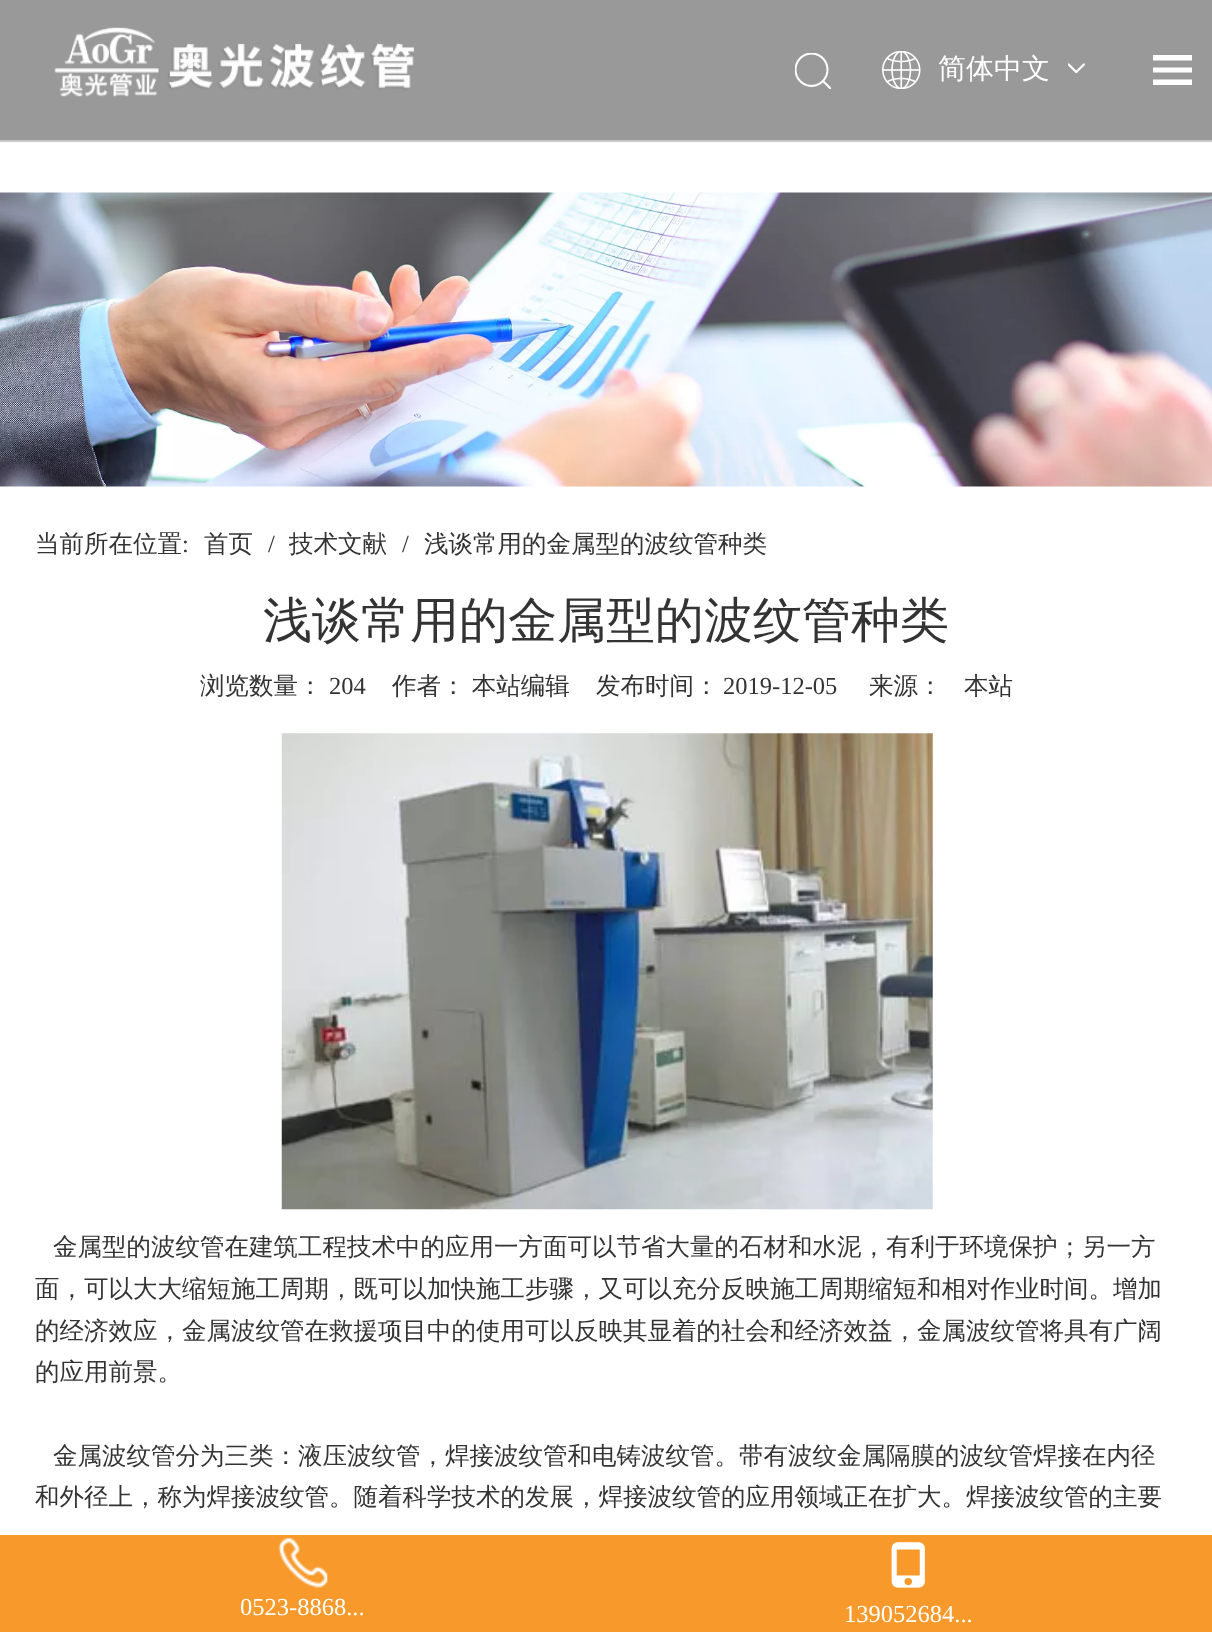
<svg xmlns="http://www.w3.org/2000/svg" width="1212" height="1632">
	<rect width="100%" height="100%" fill="#FFFFFF" />
	<rect x="0" y="0" width="1212" height="140" fill="#999999" />
	<rect x="0" y="140" width="1212" height="2" fill="#C7C7C7" />
	<image x="54" y="27" width="360" height="70" href="assets/img1.png" />
	<image x="795" y="53" width="36" height="36" href="assets/img2.png" />
	<image x="882" y="51" width="39" height="38" href="assets/img3.png" />
	<text x="938" y="78" font-family="WenQuanYi Zen Hei" font-size="28" font-weight="500" fill="#FFFFFF">简体中文</text>
	<image x="1068" y="63" width="17" height="11" href="assets/img4.png" />
	<path d="M1192 79.5V85H1153V79.5ZM1192 67.5V72.5H1153V67.5ZM1192 55V60.5H1153V55Z" fill="#FFFFFF" />
	<image x="0" y="192" width="1212" height="295" href="assets/img5.png" />
	<text x="35" y="552" font-family="WenQuanYi Zen Hei" font-size="24.5" font-weight="500" fill="#333333">当前所在位置</text>
	<text x="182" y="552" font-family="Liberation Serif" font-size="24.5" fill="#333333">:</text>
	<text x="204" y="552" font-family="WenQuanYi Zen Hei" font-size="24.5" font-weight="500" fill="#333333">首页</text>
	<text x="268" y="552" font-family="Liberation Serif" font-size="24.5" fill="#333333">/</text>
	<text x="289" y="552" font-family="WenQuanYi Zen Hei" font-size="24.5" font-weight="500" fill="#333333">技术文献</text>
	<text x="402" y="552" font-family="Liberation Serif" font-size="24.5" fill="#333333">/</text>
	<text x="424" y="552" font-family="WenQuanYi Zen Hei" font-size="24.5" font-weight="500" fill="#333333">浅谈常用的金属型的波纹管种类</text>
	<text x="263" y="637" font-family="WenQuanYi Zen Hei" font-size="49" font-weight="500" fill="#333333">浅谈常用的金属型的波纹管种类</text>
	<text x="200" y="694" font-family="WenQuanYi Zen Hei" font-size="24.5" font-weight="500" fill="#333333">浏览数量：</text>
	<text x="329" y="694" font-family="Liberation Serif" font-size="24.5" fill="#333333">204</text>
	<g font-family="WenQuanYi Zen Hei" font-size="24.5" font-weight="500" fill="#333333">
		<text x="392" y="694" word-spacing="-1">作者： 本站编辑</text>
		<text x="596" y="694">发布时间：</text>
	</g>
	<text x="723" y="694" font-family="Liberation Serif" font-size="24.5" fill="#333333">2019-12-05</text>
	<g font-family="WenQuanYi Zen Hei" font-size="24.5" font-weight="500" fill="#333333">
		<text x="869" y="694">来源：</text>
		<text x="964" y="694">本站</text>
	</g>
	<image x="281" y="733" width="652" height="477" href="assets/img6.png" />
	<g font-family="WenQuanYi Zen Hei" font-size="24.5" font-weight="500" fill="#333333">
		<text x="53" y="1255">金属型的波纹管在建筑工程技术中的应用一方面可以节省大量的石材和水泥，有利于环境保护；另一方</text>
		<text x="35" y="1297">面，可以大大缩短施工周期，既可以加快施工步骤，又可以充分反映施工周期缩短和相对作业时间。增加</text>
		<text x="35" y="1339">的经济效应，金属波纹管在救援项目中的使用可以反映其显着的社会和经济效益，金属波纹管将具有广阔</text>
		<text x="35" y="1380">的应用前景。</text>
		<text x="53" y="1464">金属波纹管分为三类：液压波纹管，焊接波纹管和电铸波纹管。带有波纹金属隔膜的波纹管焊接在内径</text>
		<text x="35" y="1505">和外径上，称为焊接波纹管。随着科学技术的发展，焊接波纹管的应用领域正在扩大。焊接波纹管的主要</text>
	</g>
	<rect x="0" y="1535" width="1212" height="97" fill="#F7992B" />
	<image x="278" y="1537" width="50" height="51" href="assets/img7.png" />
	<text x="240" y="1615" font-family="Liberation Serif" font-size="24.5" fill="#FFFFFF">0523-8868...</text>
	<image x="891" y="1542" width="34" height="46" href="assets/img8.png" />
	<text x="844" y="1622" font-family="Liberation Serif" font-size="24.5" fill="#FFFFFF">139052684...</text>
</svg>
